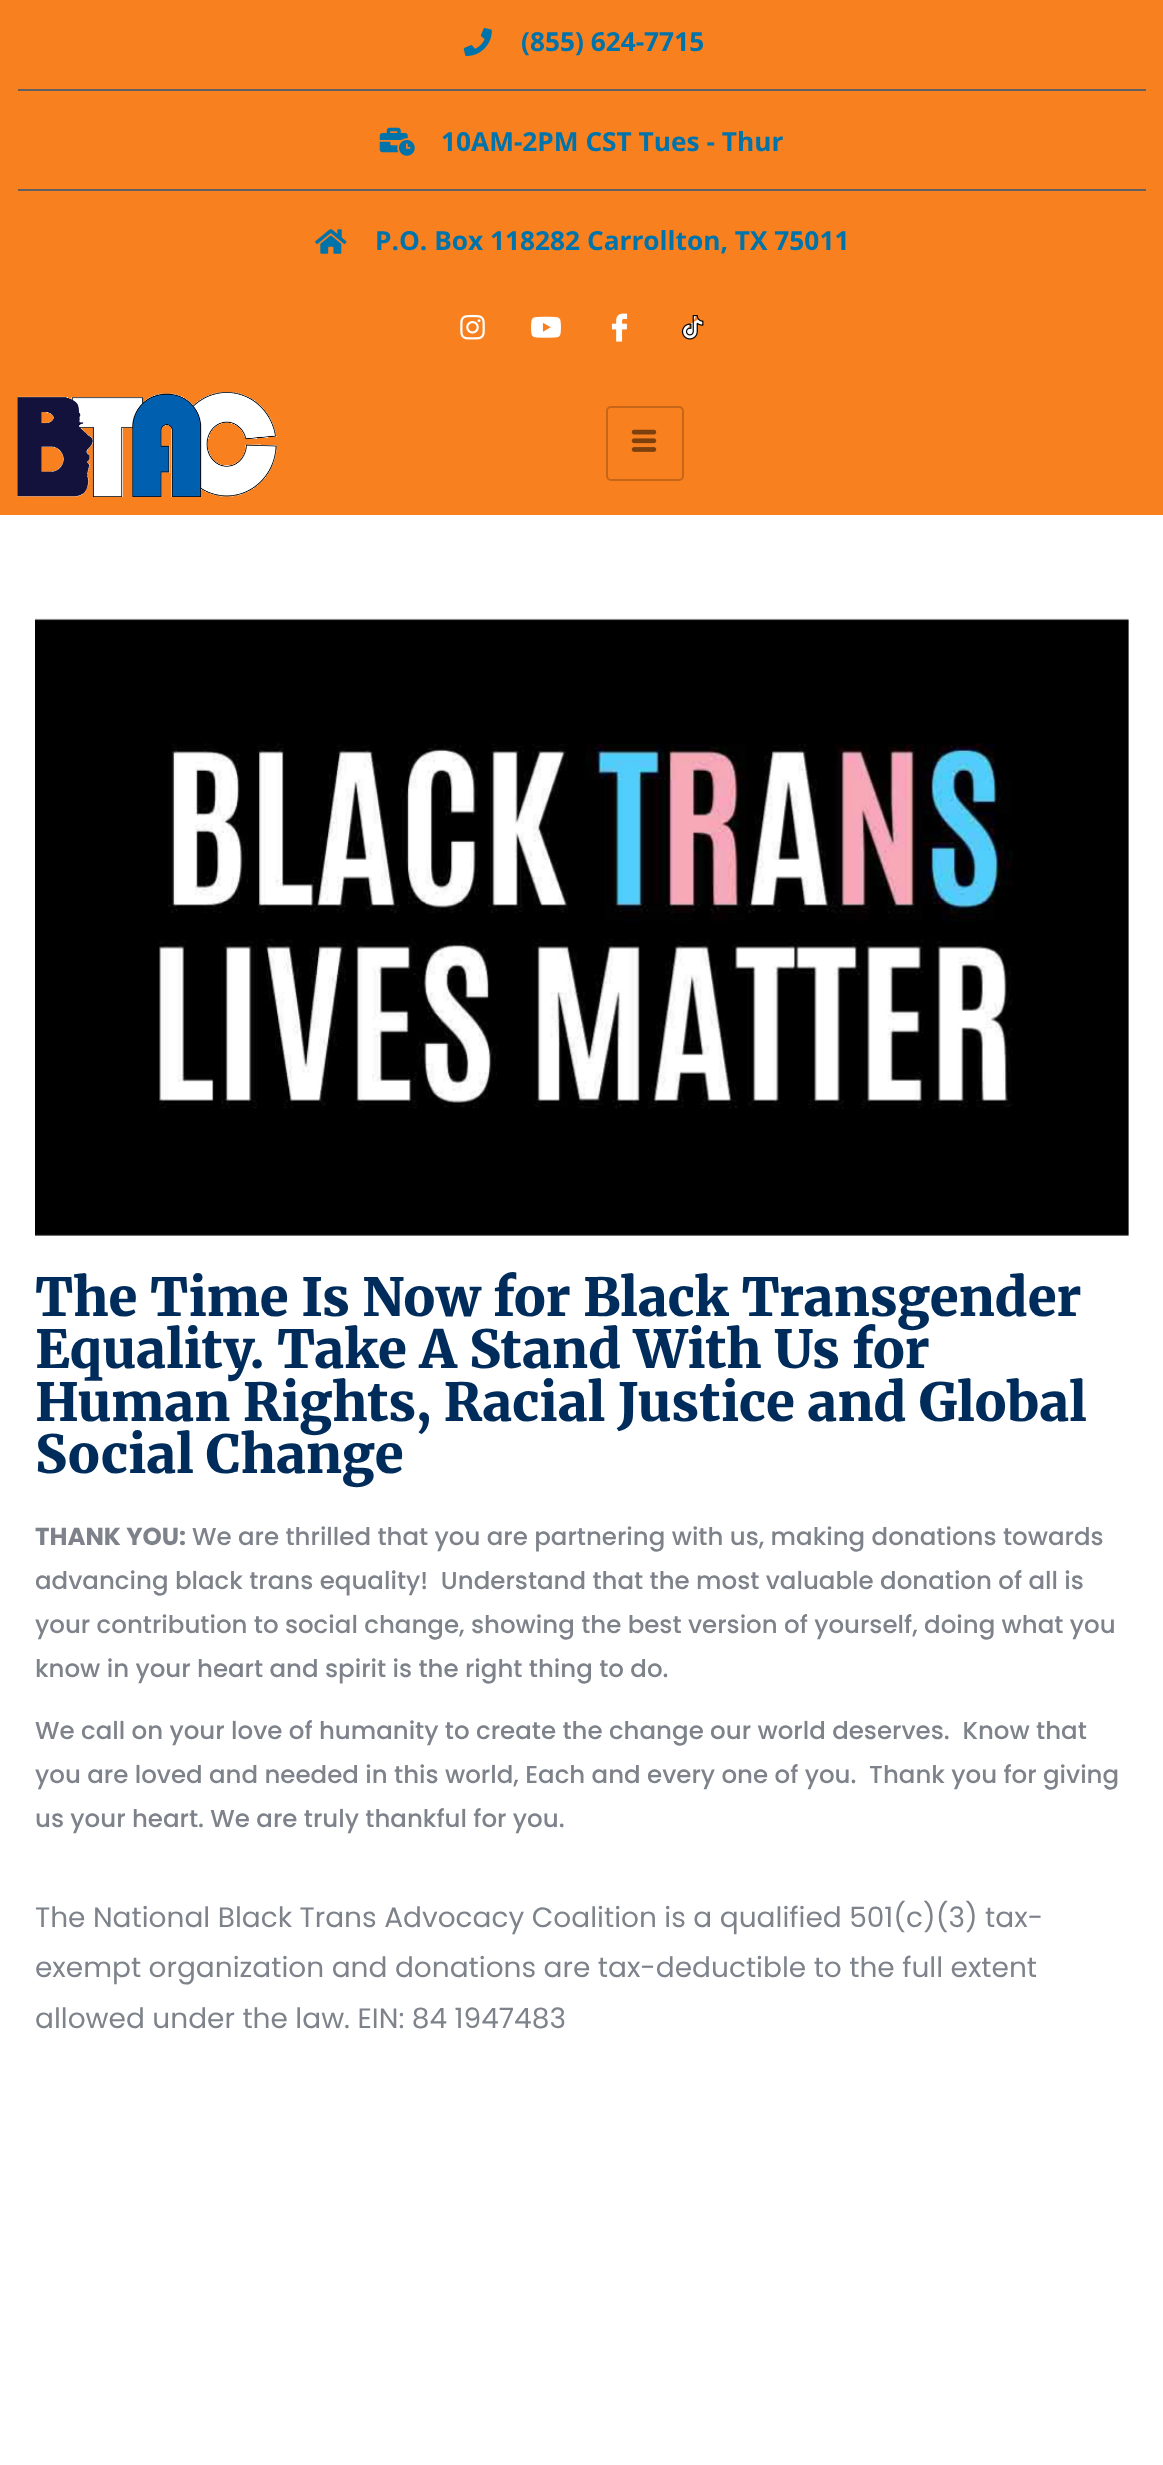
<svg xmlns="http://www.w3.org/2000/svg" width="1163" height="2465">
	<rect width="100%" height="100%" fill="#FFFFFF" />
	<rect x="0" y="0" width="1163" height="515" fill="#F9801E" />
	<image x="463" y="28" width="29" height="28" href="assets/img1.png" />
	<text x="521" y="51" font-family="Open Sans" font-size="26.25" font-weight="700" fill="#0073AA">(855) 624-7715</text>
	<rect x="18" y="89" width="1128" height="2" fill="#616161" />
	<image x="379" y="127" width="36" height="29" href="assets/img2.png" />
	<text x="441" y="151" font-family="Open Sans" font-size="26.25" font-weight="700" fill="#0073AA">10AM-2PM CST Tues - Thur</text>
	<rect x="18" y="189" width="1128" height="2" fill="#616161" />
	<image x="315" y="229" width="32" height="25" href="assets/img3.png" />
	<text x="375" y="250" font-family="Open Sans" font-size="26.25" font-weight="700" fill="#0073AA">P.O. Box 118282 Carrollton, TX 75011</text>
	<image x="460" y="314" width="25" height="26" href="assets/img4.png" />
	<image x="531" y="316" width="30" height="22" href="assets/img5.png" />
	<image x="611" y="313" width="17" height="29" href="assets/img6.png" />
	<image x="681" y="315" width="23" height="25" href="assets/img7.png" />
	<image x="17" y="392" width="260" height="105" href="assets/img8.png" />
	<rect x="607" y="407" width="76" height="73" rx="4" fill="none" stroke="#C76618" stroke-width="2" />
	<image x="631" y="429" width="26" height="23" href="assets/img9.png" />
	<image x="35" y="618" width="1094" height="618" href="assets/img10.png" />
	<g font-family="Merriweather" font-size="52.5" font-weight="900" fill="#002C5B">
		<text x="35" y="1316">The Time Is Now for Black Transgender</text>
		<text x="35" y="1368">Equality. Take A Stand With Us for</text>
		<text x="35" y="1421">Human Rights, Racial Justice and Global</text>
		<text x="35" y="1473">Social Change</text>
	</g>
	<text x="35" y="1545" font-family="Poppins" font-size="24.5" font-weight="700" fill="#7E838B">THANK YOU:</text>
	<g font-family="Poppins" font-size="24.5" font-weight="500" fill="#7E838B">
		<text x="192" y="1545">We are thrilled that you are partnering with us, making donations towards</text>
		<text x="35" y="1589" xml:space="preserve">advancing black trans equality!  Understand that the most valuable donation of all is</text>
		<text x="35" y="1633">your contribution to social change, showing the best version of yourself, doing what you</text>
		<text x="35" y="1677">know in your heart and spirit is the right thing to do.</text>
		<text x="35" y="1739" xml:space="preserve">We call on your love of humanity to create the change our world deserves.  Know that</text>
		<text x="35" y="1783" xml:space="preserve">you are loved and needed in this world, Each and every one of you.  Thank you for giving</text>
		<text x="35" y="1827">us your heart. We are truly thankful for you.</text>
	</g>
	<g font-family="Poppins" font-size="28" fill="#7E838B">
		<text x="35" y="1927">The National Black Trans Advocacy Coalition is a qualified 501(c)(3) tax-</text>
		<text x="35" y="1977">exempt organization and donations are tax-deductible to the full extent</text>
		<text x="35" y="2028">allowed under the law. EIN: 84 1947483</text>
	</g>
</svg>
